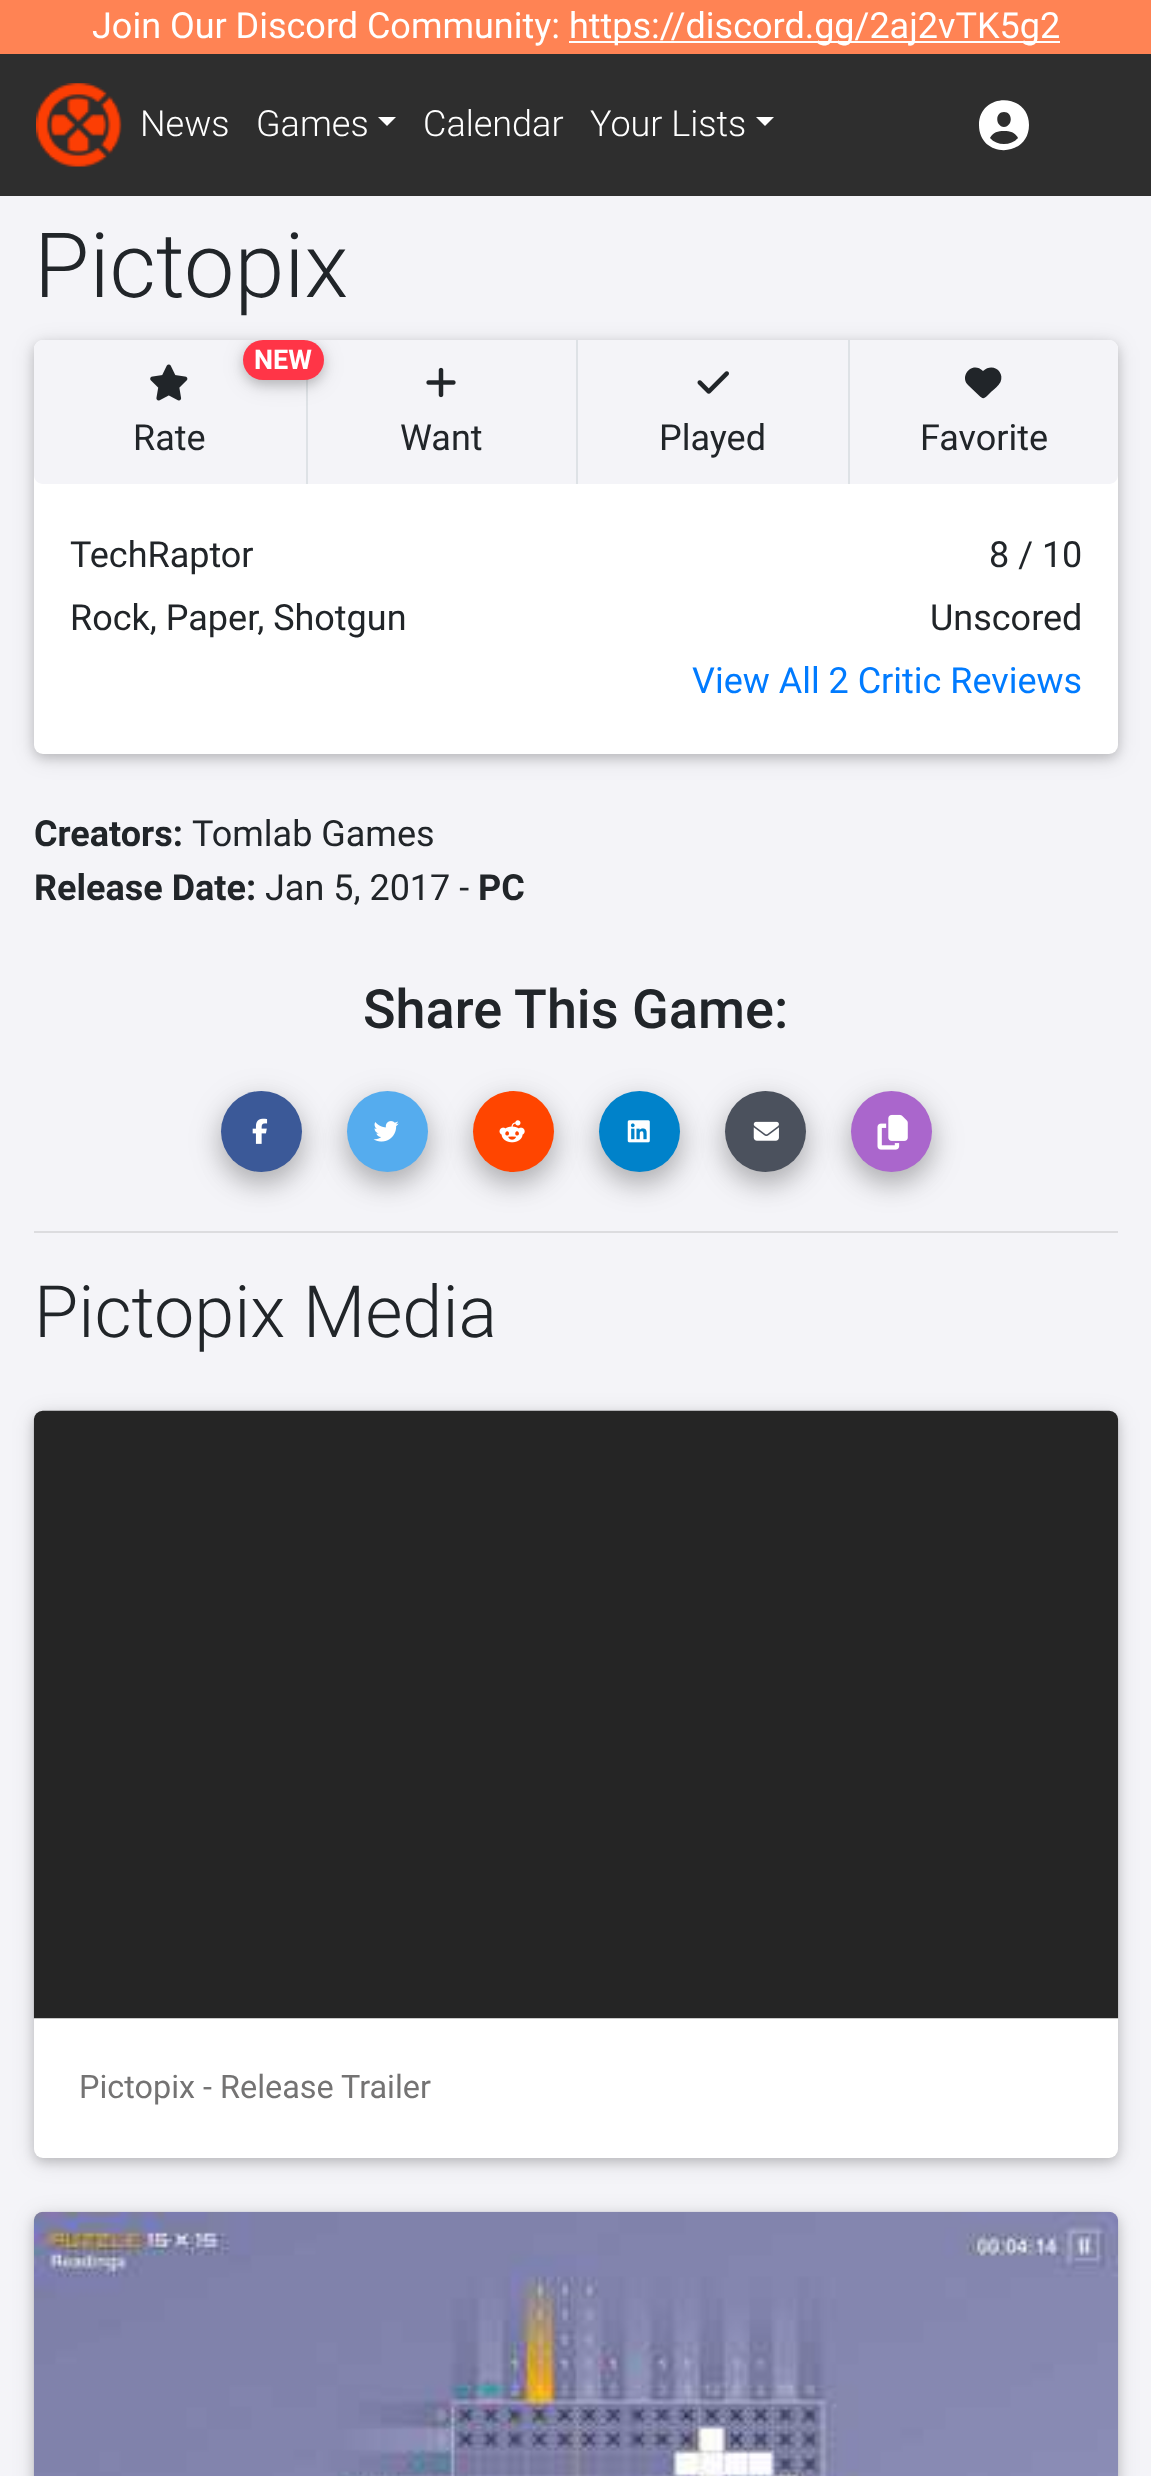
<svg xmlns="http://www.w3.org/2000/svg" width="1151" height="2476">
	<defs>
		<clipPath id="clip1"><rect x="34" y="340" width="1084" height="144" rx="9" /></clipPath>
	</defs>
	<rect width="100%" height="100%" fill="#F4F4F8" />
	<rect x="0" y="0" width="1151" height="54" fill="#FF8354" />
	<text x="92" y="38" font-family="Roboto" font-size="36" fill="#FFFFFF">Join Our Discord Community:</text>
	<rect x="569" y="41" width="491" height="2" fill="#FFFFFF" />
	<text x="569" y="38" font-family="Roboto" font-size="36" fill="#FFFFFF">https://discord.gg/2aj2vTK5g2</text>
	<rect x="0" y="54" width="1151" height="142" fill="#2E2E2E" />
	<image x="36" y="83" width="86" height="84" href="assets/img1.png" />
	<g font-family="Roboto" font-size="36" font-weight="300" fill="#FFFFFF">
		<text x="140" y="136">News</text>
		<text x="256" y="136">Games</text>
	</g>
	<path d="M378 117H396L387 126Z" fill="#FFFFFF" />
	<g font-family="Roboto" font-size="36" font-weight="300" fill="#FFFFFF">
		<text x="423" y="136">Calendar</text>
		<text x="590" y="136">Your Lists</text>
	</g>
	<path d="M756 117H774L765 126Z" fill="#FFFFFF" />
	<path d="M1018 138C1015 132 1010 131 1004 131C998 131 993 132 990 138C997 146 1011 146 1018 138ZM979 125C979 92 1029 92 1029 125C1029 158 979 159 979 125ZM1004 127C1013 126 1013 112 1004 112C995 112 995 126 1004 127Z" fill="#FFFFFF" />
	<text x="34" y="297" font-family="Roboto" font-size="90" font-weight="300" fill="#212529">Pictopix</text>
	<rect x="34" y="344" width="1084" height="414" rx="9" fill="#000000" fill-opacity="0.12" filter="blur(11px)" />
	<rect x="34" y="344" width="1084" height="414" rx="9" fill="#000000" fill-opacity="0.16" filter="blur(5.5px)" />
	<rect x="34" y="340" width="1084" height="414" rx="9" fill="#FFFFFF" />
	<path d="M43 340H306V484H43C38 484 34 480 34 475V349C34 344 38 340 43 340Z" fill="#F4F4F8" />
	<rect x="308" y="340" width="268" height="144" fill="#F4F4F8" />
	<rect x="306" y="340" width="2" height="144" fill="#DEE2E6" />
	<g clip-path="url(#clip1)">
		<rect x="243" y="344" width="81" height="41" rx="20.5" fill="#000000" fill-opacity="0.12" filter="blur(11px)" />
		<rect x="243" y="344" width="81" height="41" rx="20.5" fill="#000000" fill-opacity="0.16" filter="blur(5.5px)" />
	</g>
	<rect x="243" y="340" width="81" height="40" rx="20" fill="#FF3547" />
	<text x="254" y="369" font-family="Roboto" font-size="27" font-weight="700" fill="#FFFFFF">NEW</text>
	<image x="150" y="364" width="38" height="37" href="assets/img2.png" />
	<text x="133" y="450" font-family="Roboto" font-size="36" fill="#212529">Rate</text>
	<image x="426" y="367" width="30" height="31" href="assets/img3.png" />
	<text x="400" y="450" font-family="Roboto" font-size="36" fill="#212529">Want</text>
	<rect x="578" y="340" width="270" height="144" fill="#F4F4F8" />
	<rect x="576" y="340" width="2" height="144" fill="#DEE2E6" />
	<image x="697" y="371" width="32" height="23" href="assets/img4.png" />
	<text x="659" y="450" font-family="Roboto" font-size="36" fill="#212529">Played</text>
	<path d="M848 340H1109C1114 340 1118 344 1118 349V475C1118 480 1114 484 1109 484H848Z" fill="#F4F4F8" />
	<rect x="848" y="340" width="2" height="144" fill="#DEE2E6" />
	<path d="M968.5 385.5L981.5 397.5L968.5 385.5L979 395.5C983 399 983.5 399 987.5 395.5L991.5 391.5C994.5 389 998.5 386 1000.5 382C1005 371.5 992.5 362 983 371C972.5 360.5 958.5 376 968.5 385.5Z" fill="#212529" />
	<g font-family="Roboto" font-size="36" fill="#212529">
		<text x="920" y="450">Favorite</text>
		<text x="70" y="567">TechRaptor</text>
		<text x="989" y="567">8 / 10</text>
		<text x="70" y="630">Rock, Paper, Shotgun</text>
		<text x="930" y="630">Unscored</text>
	</g>
	<text x="692" y="693" font-family="Roboto" font-size="36" fill="#007BFF">View All 2 Critic Reviews</text>
	<text x="34" y="846" font-family="Roboto" font-size="36" font-weight="700" fill="#212529">Creators:</text>
	<text x="192" y="846" font-family="Roboto" font-size="36" fill="#212529">Tomlab Games</text>
	<text x="34" y="900" font-family="Roboto" font-size="36" font-weight="700" fill="#212529">Release Date:</text>
	<text x="265" y="900" font-family="Roboto" font-size="36" fill="#212529">Jan 5, 2017 -</text>
	<text x="478" y="900" font-family="Roboto" font-size="36" font-weight="700" fill="#212529">PC</text>
	<text x="363" y="1028" font-family="Roboto" font-size="54" font-weight="500" fill="#212529">Share This Game:</text>
	<rect x="34" y="1231" width="1084" height="2" fill="#DCDCDF" />
	<rect x="221" y="1100" width="81" height="81" rx="40.5" fill="#000000" fill-opacity="0.15" filter="blur(17px)" />
	<rect x="221" y="1103" width="81" height="81" rx="40.5" fill="#000000" fill-opacity="0.18" filter="blur(12.5px)" />
	<circle cx="261.5" cy="1131.5" r="40.5" fill="#3B5998" />
	<image x="252" y="1118" width="16" height="26" href="assets/img5.png" />
	<rect x="347" y="1100" width="81" height="81" rx="40.5" fill="#000000" fill-opacity="0.15" filter="blur(17px)" />
	<rect x="347" y="1103" width="81" height="81" rx="40.5" fill="#000000" fill-opacity="0.18" filter="blur(12.5px)" />
	<circle cx="387.5" cy="1131.5" r="40.5" fill="#55ACEE" />
	<image x="373" y="1121" width="26" height="21" href="assets/img6.png" />
	<rect x="473" y="1100" width="81" height="81" rx="40.5" fill="#000000" fill-opacity="0.15" filter="blur(17px)" />
	<rect x="473" y="1103" width="81" height="81" rx="40.5" fill="#000000" fill-opacity="0.18" filter="blur(12.5px)" />
	<circle cx="513.5" cy="1131.5" r="40.5" fill="#FF4500" />
	<image x="499" y="1120" width="26" height="23" href="assets/img7.png" />
	<rect x="599" y="1100" width="81" height="81" rx="40.5" fill="#000000" fill-opacity="0.15" filter="blur(17px)" />
	<rect x="599" y="1103" width="81" height="81" rx="40.5" fill="#000000" fill-opacity="0.18" filter="blur(12.5px)" />
	<circle cx="639.5" cy="1131.5" r="40.5" fill="#0082CA" />
	<image x="627" y="1120" width="23" height="23" href="assets/img8.png" />
	<rect x="725" y="1100" width="81" height="81" rx="40.5" fill="#000000" fill-opacity="0.15" filter="blur(17px)" />
	<rect x="725" y="1103" width="81" height="81" rx="40.5" fill="#000000" fill-opacity="0.18" filter="blur(12.5px)" />
	<circle cx="765.5" cy="1131.5" r="40.5" fill="#4B515D" />
	<image x="753" y="1121" width="26" height="20" href="assets/img9.png" />
	<rect x="851" y="1100" width="81" height="81" rx="40.5" fill="#000000" fill-opacity="0.15" filter="blur(17px)" />
	<rect x="851" y="1103" width="81" height="81" rx="40.5" fill="#000000" fill-opacity="0.18" filter="blur(12.5px)" />
	<circle cx="891.5" cy="1131.5" r="40.5" fill="#AA66CC" />
	<image x="877" y="1114" width="31" height="36" href="assets/img10.png" />
	<text x="34" y="1337" font-family="Roboto" font-size="72" font-weight="300" fill="#212529">Pictopix Media</text>
	<rect x="34" y="1415" width="1084" height="747" rx="9" fill="#000000" fill-opacity="0.12" filter="blur(11px)" />
	<rect x="34" y="1415" width="1084" height="747" rx="9" fill="#000000" fill-opacity="0.16" filter="blur(5.5px)" />
	<rect x="34" y="1411" width="1084" height="747" rx="9" fill="#FFFFFF" />
	<image x="33" y="1410" width="1086" height="609" href="assets/img11.png" />
	<text x="79" y="2098" font-family="Roboto" font-size="32.4" fill="#747373">Pictopix - Release Trailer</text>
	<rect x="34" y="2216" width="1084" height="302" rx="9" fill="#000000" fill-opacity="0.12" filter="blur(11px)" />
	<rect x="34" y="2216" width="1084" height="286" rx="9" fill="#000000" fill-opacity="0.16" filter="blur(5.5px)" />
	<image x="33" y="2211" width="1086" height="265" href="assets/img12.png" />
</svg>
